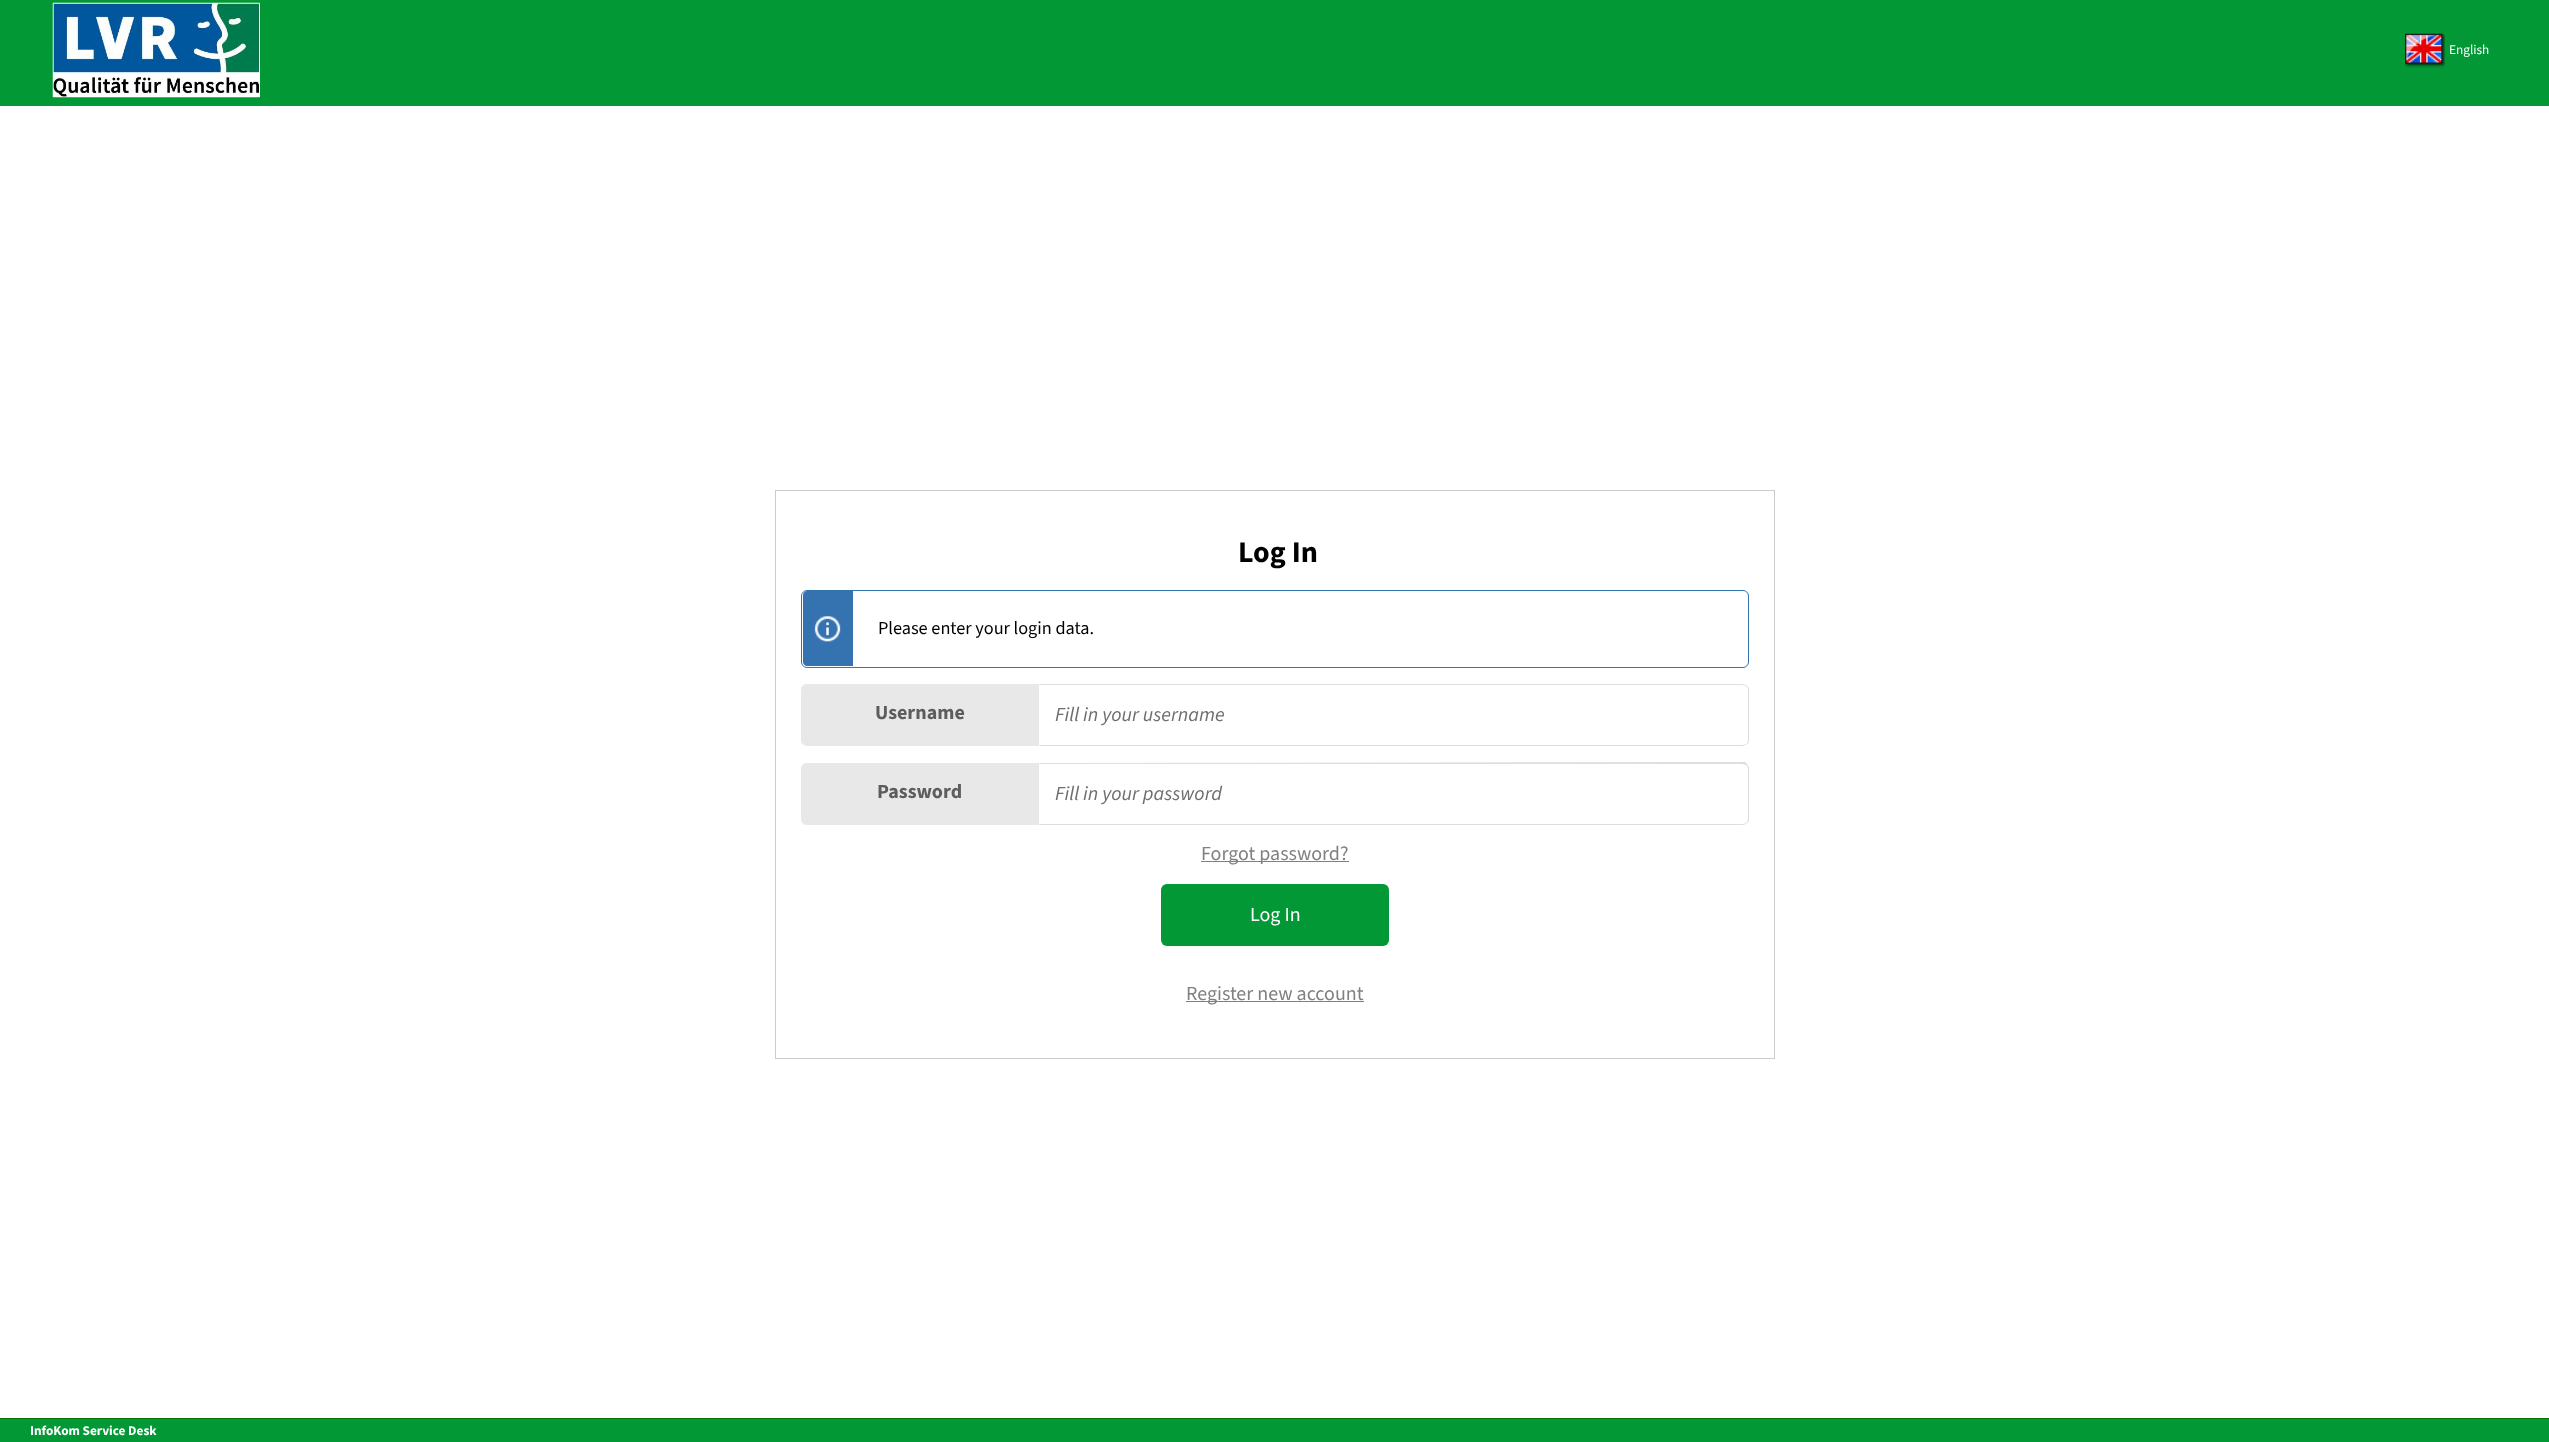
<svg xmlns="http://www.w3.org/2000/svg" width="2549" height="1442">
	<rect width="100%" height="100%" fill="#FFFFFF" />
	<rect x="0" y="0" width="2549" height="106" fill="#029835" />
	<image x="52" y="2" width="208" height="96" href="assets/img1.png" />
	<image x="2405" y="33" width="40" height="35" href="assets/img2.png" />
	<text x="2449" y="54" font-family="'Source Sans 3'" font-size="13.25" fill="#FFFFFF">English</text>
	<rect x="775.5" y="490.5" width="999" height="568" fill="none" stroke="#CCCCCC" />
	<text x="1238" y="562" font-family="'Source Sans 3'" font-size="30" font-weight="700" fill="#000000">Log In</text>
	<rect x="801.5" y="590.5" width="947" height="77" rx="5.5" fill="none" stroke="#3572B0" />
	<path d="M807 591H853V666H807C805 666 803 664 803 662V595C803 593 805 591 807 591Z" fill="#3572B0" />
	<image x="814" y="616" width="27" height="26" href="assets/img3.png" />
	<text x="878" y="634" font-family="'Source Sans 3'" font-size="18.25" fill="#000000">Please enter your login data.</text>
	<path d="M807 684H1039V746H807C803.5 746 801 743.5 801 740V690C801 686.5 803.5 684 807 684Z" fill="#E8E8E8" />
	<text x="875" y="719" font-family="'Source Sans 3'" font-size="20" font-weight="700" fill="#5D5D5D">Username</text>
	<path d="M1039 684L1040 685H1742C1744 685 1745 686 1746 686H1747C1746 685 1744 684 1742 684Z" fill="#DEDEDE" />
	<path d="M1747 686L1749 688V742L1747 744H1746C1747 743 1748 742 1748 740V690C1748 688 1747 687 1746 686Z" fill="#DEDEDE" />
	<path d="M1747 744L1743 746H1039L1040 745H1742C1744 745 1745 744 1746 744Z" fill="#DEDEDE" />
	<text x="1055" y="721" font-family="'Source Sans 3'" font-size="20" font-style="italic" fill="#6E6E6E">Fill in your username</text>
	<path d="M807 763H1039V825H807C803.5 825 801 822.5 801 819V769C801 765.5 803.5 763 807 763Z" fill="#E8E8E8" />
	<text x="877" y="798" font-family="'Source Sans 3'" font-size="20" font-weight="700" fill="#5D5D5D">Password</text>
	<path d="M1039 763L1745 762L1747 764L1746 765L1742 764H1040Z" fill="#DEDEDE" />
	<path d="M1749 821L1747 823H1746C1747 822 1748 820 1748 819V769C1748 767 1747 766 1746 765L1747 764L1749 767Z" fill="#222426" fill-opacity="0.15" />
	<path d="M1039 825H1742C1744 825 1746 824 1747 823H1746L1743 824H1040Z" fill="#DEDEDE" />
	<text x="1055" y="800" font-family="'Source Sans 3'" font-size="20" font-style="italic" fill="#6E6E6E">Fill in your password</text>
	<rect x="1201" y="861" width="148" height="1" fill="#808080" />
	<text x="1201" y="860" font-family="'Source Sans 3'" font-size="20" fill="#808080">Forgot password?</text>
	<rect x="1161" y="884" width="228" height="62" rx="6" fill="#029835" />
	<text x="1250" y="921" font-family="'Source Sans 3'" font-size="20" fill="#FFFFFF">Log In</text>
	<rect x="1186" y="1001" width="178" height="1" fill="#808080" />
	<text x="1186" y="1000" font-family="'Source Sans 3'" font-size="20" fill="#808080">Register new account</text>
	<rect x="0" y="1419" width="2549" height="23" fill="#029835" />
	<rect x="0" y="1418" width="2549" height="1" fill="#007700" />
	<text x="30" y="1435" font-family="'Source Sans 3'" font-size="13.25" font-weight="700" fill="#FFFFFF">InfoKom Service Desk</text>
</svg>
